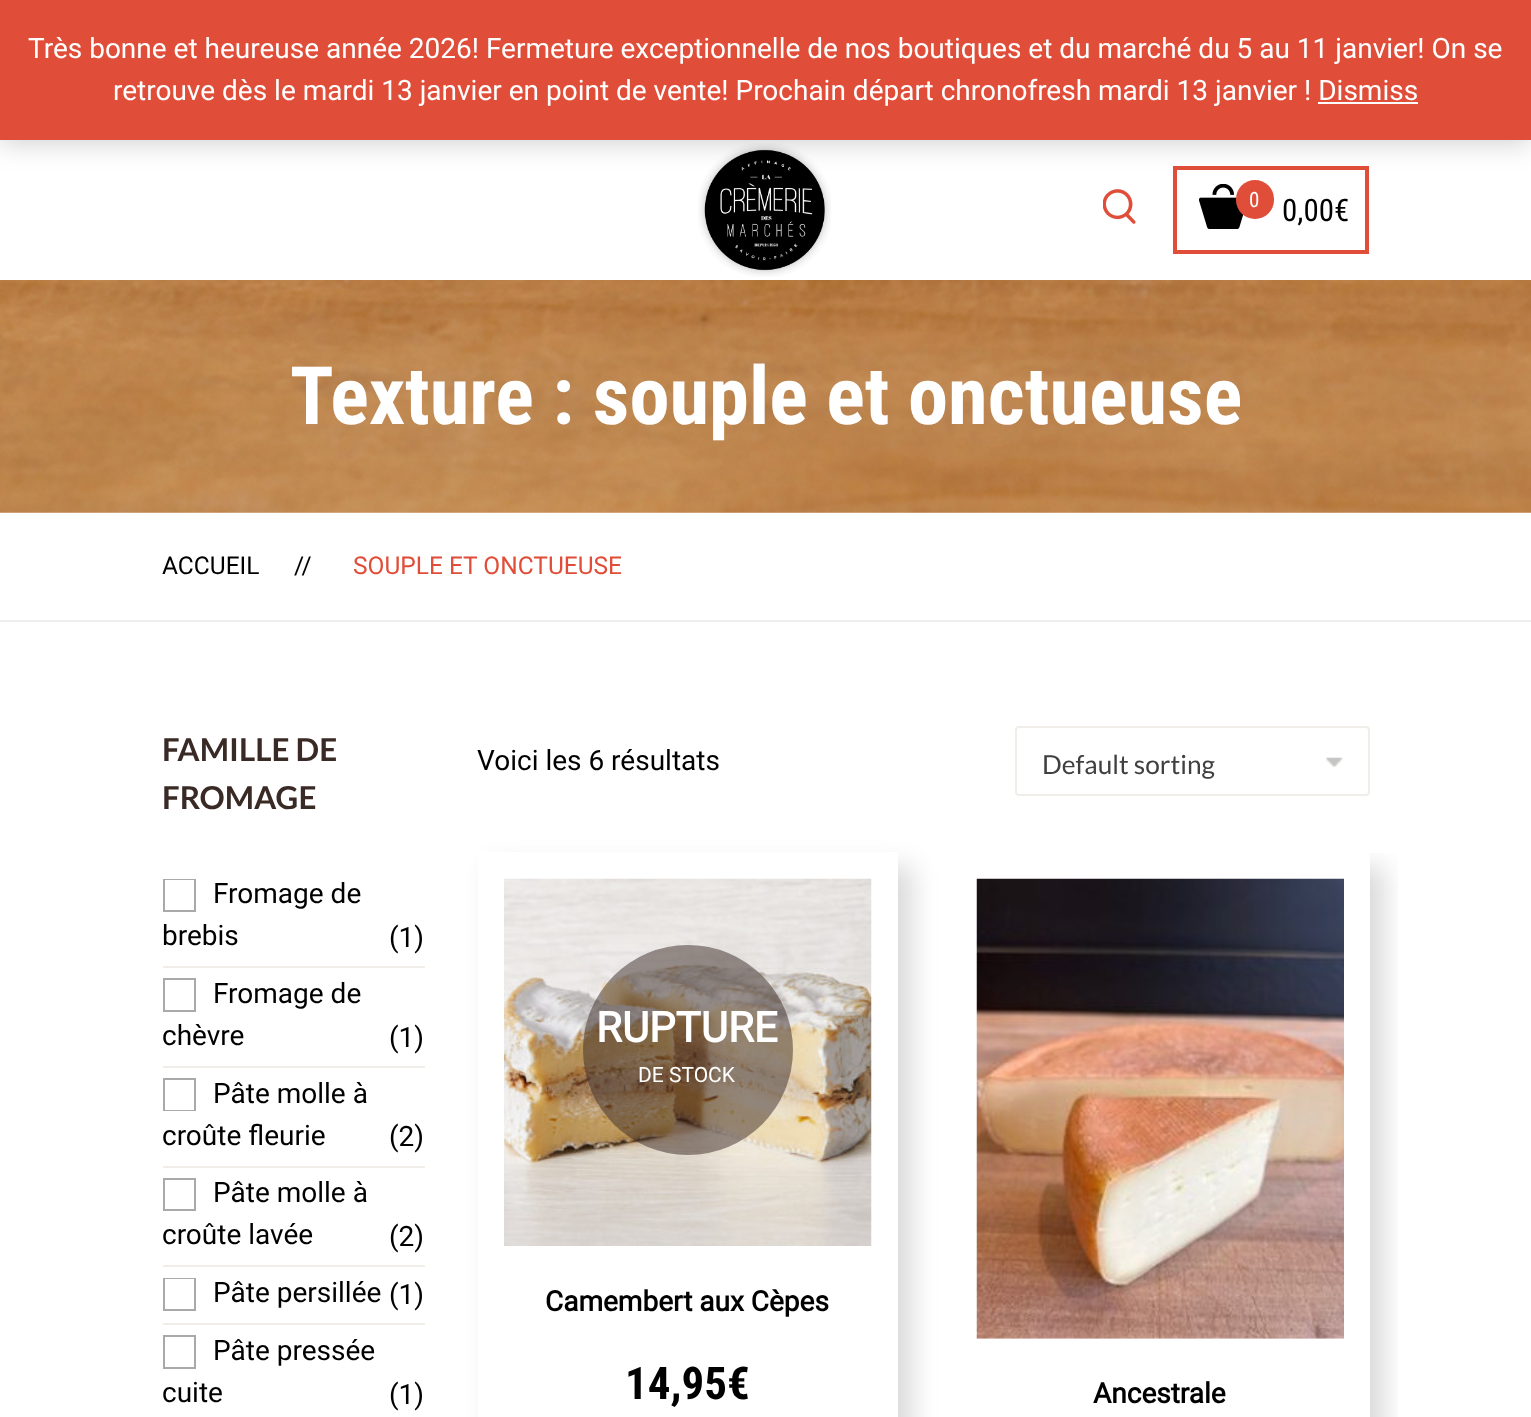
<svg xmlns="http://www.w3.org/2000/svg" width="1531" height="1417">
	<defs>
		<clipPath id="clip1"><rect x="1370" y="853" width="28" height="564" /></clipPath>
	</defs>
	<rect width="100%" height="100%" fill="#FFFFFF" />
	<image x="698" y="143" width="133" height="134" href="assets/img1.png" />
	<rect x="1175" y="168" width="192" height="84" fill="none" stroke="#E04E39" stroke-width="4" />
	<image x="1199" y="184" width="45" height="45" href="assets/img3.png" />
	<rect x="1236" y="180" width="38" height="39" rx="19" fill="#E04E39" />
	<rect x="0" y="2" width="1531" height="140" fill="#000000" fill-opacity="0.2" filter="blur(14px)" />
	<rect x="0" y="0" width="1531" height="140" fill="#E04E39" />
	<g font-family="Roboto" font-size="28" fill="#FFFFFF">
		<text x="28" y="58">Très bonne et heureuse année 2026! Fermeture exceptionnelle de nos boutiques et du marché du 5 au 11 janvier! On se</text>
		<text x="113" y="100">retrouve dès le mardi 13 janvier en point de vente! Prochain départ chronofresh mardi 13 janvier ! Dismiss</text>
	</g>
	<rect x="1318" y="102" width="100" height="2" fill="#FFFFFF" />
	<image x="1103" y="189" width="33" height="35" href="assets/img2.png" />
	<text x="1249" y="207" font-family="Roboto Condensed" font-size="21" fill="#FFFFFF">0</text>
	<text x="1282" y="221" font-family="Roboto Condensed" font-size="31" fill="#000000">0,00€</text>
	<image x="0" y="280" width="1531" height="233" href="assets/img4.png" />
	<text x="290" y="424" font-family="Roboto Condensed" font-size="80.5" font-weight="700" fill="#FFFFFF">Texture : souple et onctueuse</text>
	<rect x="0" y="620" width="1531" height="2" fill="#EEEEEE" />
	<g font-family="Roboto" font-size="24.5" fill="#000000">
		<text x="162" y="574">ACCUEIL</text>
		<text x="294" y="574">//</text>
	</g>
	<text x="353" y="574" font-family="Roboto" font-size="24.5" fill="#E04E39">SOUPLE ET ONCTUEUSE</text>
	<g font-family="Lato" font-size="31.5" font-weight="700" fill="#392A25">
		<text x="162" y="761">FAMILLE DE</text>
		<text x="162" y="809">FROMAGE</text>
	</g>
	<rect x="163" y="966" width="262" height="2" fill="#F1EEEA" />
	<rect x="167.5" y="883.5" width="24" height="24" fill="none" stroke="#A9A9A9" stroke-width="9" />
	<rect x="168.5" y="883.5" width="22" height="23" fill="none" stroke="#FFFFFF" stroke-width="7" />
	<rect x="172" y="887" width="15" height="1" fill="#FFFFFF" />
	<g font-family="Roboto" font-size="28" fill="#000000">
		<text x="213" y="903">Fromage de</text>
		<text x="162" y="945">brebis</text>
		<text x="389" y="947">(1)</text>
	</g>
	<rect x="163" y="1066" width="262" height="2" fill="#F1EEEA" />
	<rect x="167.5" y="982.5" width="24" height="25" fill="none" stroke="#A9A9A9" stroke-width="9" />
	<rect x="168.5" y="983.5" width="22" height="23" fill="none" stroke="#FFFFFF" stroke-width="7" />
	<g font-family="Roboto" font-size="28" fill="#000000">
		<text x="213" y="1003">Fromage de</text>
		<text x="162" y="1045">chèvre</text>
		<text x="389" y="1047">(1)</text>
	</g>
	<rect x="163" y="1166" width="262" height="2" fill="#F1EEEA" />
	<rect x="167.5" y="1082.5" width="24" height="24" fill="none" stroke="#A9A9A9" stroke-width="9" />
	<rect x="168.5" y="1083.5" width="22" height="23" fill="none" stroke="#FFFFFF" stroke-width="7" />
	<rect x="172" y="1102" width="15" height="1" fill="#FFFFFF" />
	<g font-family="Roboto" font-size="28" fill="#000000">
		<text x="213" y="1103">Pâte molle à</text>
		<text x="162" y="1145">croûte fleurie</text>
		<text x="389" y="1146">(2)</text>
	</g>
	<rect x="163" y="1265" width="262" height="2" fill="#F1EEEA" />
	<rect x="167.5" y="1182.5" width="24" height="24" fill="none" stroke="#A9A9A9" stroke-width="9" />
	<rect x="168.5" y="1183.5" width="22" height="22" fill="none" stroke="#FFFFFF" stroke-width="7" />
	<g font-family="Roboto" font-size="28" fill="#000000">
		<text x="213" y="1202">Pâte molle à</text>
		<text x="162" y="1244">croûte lavée</text>
		<text x="389" y="1246">(2)</text>
	</g>
	<rect x="163" y="1323" width="262" height="2" fill="#F1EEEA" />
	<rect x="167.5" y="1282.5" width="24" height="24" fill="none" stroke="#A9A9A9" stroke-width="9" />
	<rect x="168.5" y="1282.5" width="22" height="23" fill="none" stroke="#FFFFFF" stroke-width="7" />
	<rect x="172" y="1286" width="15" height="1" fill="#FFFFFF" />
	<g font-family="Roboto" font-size="28" fill="#000000">
		<text x="213" y="1302">Pâte persillée</text>
		<text x="389" y="1304">(1)</text>
	</g>
	<rect x="167.5" y="1339.5" width="24" height="25" fill="none" stroke="#A9A9A9" stroke-width="9" />
	<rect x="168.5" y="1340.5" width="22" height="23" fill="none" stroke="#FFFFFF" stroke-width="7" />
	<g font-family="Roboto" font-size="28" fill="#000000">
		<text x="213" y="1360">Pâte pressée</text>
		<text x="162" y="1402">cuite</text>
		<text x="389" y="1404">(1)</text>
		<text x="477" y="770">Voici les 6 résultats</text>
	</g>
	<image x="1326" y="757" width="17" height="10" href="assets/img5.png" />
	<rect x="1016" y="727" width="353" height="68" rx="3" fill="none" stroke="#F1EEEA" stroke-width="2" />
	<text x="1042" y="774" font-family="Lato" font-size="26.25" fill="#404040">Default sorting</text>
	<rect x="492" y="866" width="420" height="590" fill="#000000" fill-opacity="0.15" filter="blur(13px)" />
	<rect x="478" y="852" width="420" height="565" fill="#FFFFFF" />
	<image x="504" y="878" width="368" height="368" href="assets/img6.png" />
	<circle cx="688" cy="1050" r="105" fill="#392A25" fill-opacity="0.5" />
	<text x="596" y="1042" font-family="Roboto" font-size="42" font-weight="700" fill="#FFFFFF">RUPTURE</text>
	<text x="638" y="1082" font-family="Roboto" font-size="21" fill="#FFFFFF">DE STOCK</text>
	<text x="545" y="1311" font-family="Roboto" font-size="28" font-weight="700" fill="#000000">Camembert aux Cèpes</text>
	<text x="625" y="1399" font-family="Roboto Condensed" font-size="45" font-weight="700" fill="#000000">14,95€</text>
	<g clip-path="url(#clip1)">
		<rect x="964" y="866" width="420" height="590" fill="#000000" fill-opacity="0.15" filter="blur(13px)" />
	</g>
	<image x="976" y="878" width="368" height="461" href="assets/img7.png" />
	<text x="1093" y="1403" font-family="Roboto" font-size="28" font-weight="700" fill="#000000">Ancestrale</text>
</svg>
